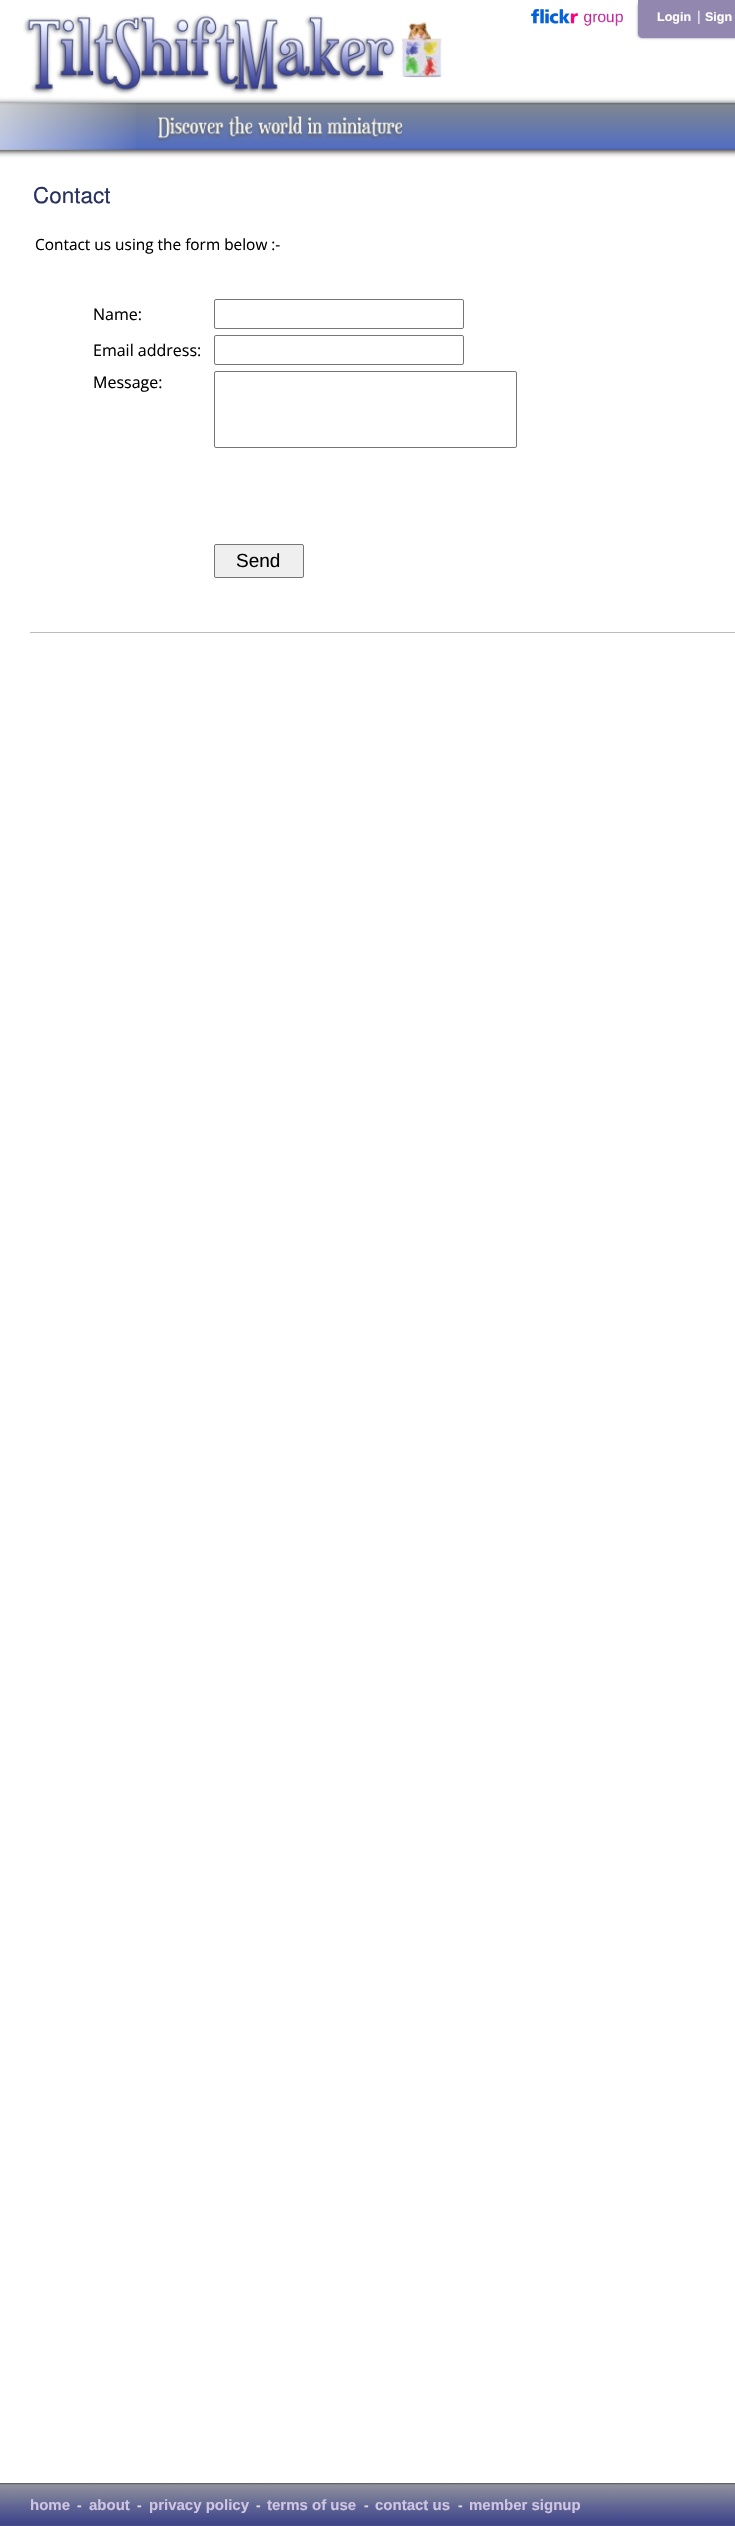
void draw(SkCanvas* canvas) {
	SkPaint paint;
	paint.setAntiAlias(true);
	auto svgPath = [&](const char* data, bool evenOdd = false) {
		SkPath result = *SkParsePath::FromSVGString(data);
		if (evenOdd) result.setFillType(SkPathFillType::kEvenOdd);
		return result;
	};
	canvas->clear(0xffffffff);
	paint.setColor(0xeb000000);
	paint.setMaskFilter(SkMaskFilter::MakeBlur(kNormal_SkBlurStyle, 3));
	canvas->drawRect(SkRect::MakeXYWH(-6, 104, 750, 47), paint);
	paint.setMaskFilter(nullptr);
	canvas->drawImageRect(SkImages::DeferredFromEncodedData(SkData::MakeFromFileName("img1.png")), SkRect::MakeXYWH(23, 14, 419, 81), SkSamplingOptions());
	canvas->drawImageRect(SkImages::DeferredFromEncodedData(SkData::MakeFromFileName("img2.png")), SkRect::MakeXYWH(531, 9, 92, 17), SkSamplingOptions());
	paint.setColor(0x59685b89);
	paint.setMaskFilter(SkMaskFilter::MakeBlur(kNormal_SkBlurStyle, 1));
	canvas->drawRoundRect(SkRect::MakeXYWH(637, 1, 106, 38), 5, 5, paint);
	paint.setMaskFilter(nullptr);
	paint.setColor(0xff9287af);
	canvas->drawPath(svgPath("M638 0H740V38H643C640 38 638 36 638 33Z"), paint);
	SkFont f1(fontMgr->matchFamilyStyle("Liberation Sans", SkFontStyle::Bold()), 12.5);
	f1.setSubpixel(true);
	paint.setColor(0xffffffff);
	canvas->drawString("Login", 657, 21, f1, paint);
	SkFont f2(fontMgr->matchFamilyStyle("Liberation Sans", SkFontStyle::Normal()), 14);
	f2.setSubpixel(true);
	paint.setColor(0xffebe9f2);
	canvas->drawString("|", 697, 21, f2, paint);
	paint.setColor(0xffffffff);
	canvas->drawString("Sign", 705, 21, f1, paint);
	{
		const SkColor colors[] = {0xff646c76, 0xff7f8690, 0xff536ec1, 0xff4f5f8d};
		const float stops[] = {0, 0.05, 0.95, 1};
		const SkPoint ends[] = {{440, 103}, {440, 150}};
		paint.setShader(SkGradientShader::MakeLinear(ends, colors, stops, 4, SkTileMode::kClamp));
		paint.setAlpha(255);
	}
	canvas->drawRect(SkRect::MakeXYWH(0, 103, 735, 47), paint);
	{
		const SkColor colors[] = {0x99ffffff, 0x00ffffff};
		const float stops[] = {0, 0.16};
		const SkPoint ends[] = {{0, 127}, {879, 126}};
		paint.setShader(SkGradientShader::MakeLinear(ends, colors, stops, 2, SkTileMode::kClamp));
		paint.setAlpha(255);
	}
	canvas->drawRect(SkRect::MakeXYWH(0, 103, 136, 47), paint);
	canvas->drawImageRect(SkImages::DeferredFromEncodedData(SkData::MakeFromFileName("img3.png")), SkRect::MakeXYWH(156, 116, 248, 26), SkSamplingOptions());
	SkFont f3(fontMgr->matchFamilyStyle("FreeSans", SkFontStyle::Normal()), 22);
	f3.setSubpixel(true);
	paint.setShader(nullptr);
	paint.setColor(0xff2a335f);
	canvas->drawString("Contact", 33, 203, f3, paint);
	SkFont f4(fontMgr->matchFamilyStyle("Open Sans", SkFontStyle::Normal()), 15.4);
	f4.setSubpixel(true);
	paint.setColor(0xff000000);
	canvas->drawString("Contact us using the form below :-", 35, 250, f4, paint);
	SkFont f5(fontMgr->matchFamilyStyle("Open Sans", SkFontStyle::Normal()), 16);
	f5.setSubpixel(true);
	canvas->drawString("Name:", 93, 320, f5, paint);
	paint.setStroke(true);
	paint.setStrokeWidth(1);
	paint.setColor(0xff767676);
	canvas->drawRoundRect(SkRect::MakeXYWH(214.5, 299.5, 249, 29), 1.5, 1.5, paint);
	paint.setStroke(false);
	paint.setColor(0xff000000);
	canvas->drawString("Email address:", 93, 356, f5, paint);
	paint.setStroke(true);
	paint.setColor(0xff767676);
	canvas->drawRoundRect(SkRect::MakeXYWH(214.5, 335.5, 249, 29), 1.5, 1.5, paint);
	paint.setStroke(false);
	paint.setColor(0xff000000);
	canvas->drawString("Message:", 93, 388, f5, paint);
	paint.setStroke(true);
	paint.setColor(0xff767676);
	canvas->drawRoundRect(SkRect::MakeXYWH(214.5, 371.5, 302, 76), 1.5, 1.5, paint);
	paint.setStroke(false);
	paint.setColor(0xffefefef);
	canvas->drawRoundRect(SkRect::MakeXYWH(214.5, 544.5, 89, 33), 1.5, 1.5, paint);
	paint.setStroke(true);
	paint.setColor(0xff767676);
	canvas->drawRoundRect(SkRect::MakeXYWH(214.5, 544.5, 89, 33), 1.5, 1.5, paint);
	SkFont f6(fontMgr->matchFamilyStyle("Liberation Sans", SkFontStyle::Normal()), 19);
	f6.setSubpixel(true);
	paint.setStroke(false);
	paint.setColor(0xff000000);
	canvas->drawString("Send", 236, 567, f6, paint);
	paint.setColor(0xffbbbbbb);
	canvas->drawRect(SkRect::MakeXYWH(30, 632, 705, 1), paint);
	canvas->drawImageRect(SkImages::DeferredFromEncodedData(SkData::MakeFromFileName("img4.png")), SkRect::MakeXYWH(0, 2484, 735, 42), SkSamplingOptions());
	paint.setColor(0xff606060);
	canvas->drawRect(SkRect::MakeXYWH(0, 2483, 735, 1), paint);
	SkFont f7(fontMgr->matchFamilyStyle("Liberation Sans", SkFontStyle::Bold()), 15);
	f7.setSubpixel(true);
	paint.setColor(0xffcfc5e2);
	canvas->drawString("home", 30, 2510, f7, paint);
	SkFont f8(fontMgr->matchFamilyStyle("Liberation Sans", SkFontStyle::Bold()), 14);
	f8.setSubpixel(true);
	paint.setColor(0xffdddddd);
	canvas->drawString("-", 77, 2510, f8, paint);
	paint.setColor(0xffcfc5e2);
	canvas->drawString("about", 89, 2510, f7, paint);
	paint.setColor(0xffdddddd);
	canvas->drawString("-", 137, 2510, f8, paint);
	paint.setColor(0xffcfc5e2);
	canvas->drawString("privacy policy", 149, 2510, f7, paint);
	paint.setColor(0xffdddddd);
	canvas->drawString("-", 256, 2510, f8, paint);
	paint.setColor(0xffcfc5e2);
	canvas->drawString("terms of use", 267, 2510, f7, paint);
	paint.setColor(0xffdddddd);
	canvas->drawString("-", 364, 2510, f8, paint);
	paint.setColor(0xffcfc5e2);
	canvas->drawString("contact us", 375, 2510, f7, paint);
	paint.setColor(0xffdddddd);
	canvas->drawString("-", 458, 2510, f8, paint);
	paint.setColor(0xffcfc5e2);
	canvas->drawString("member signup", 469, 2510, f7, paint);
}
